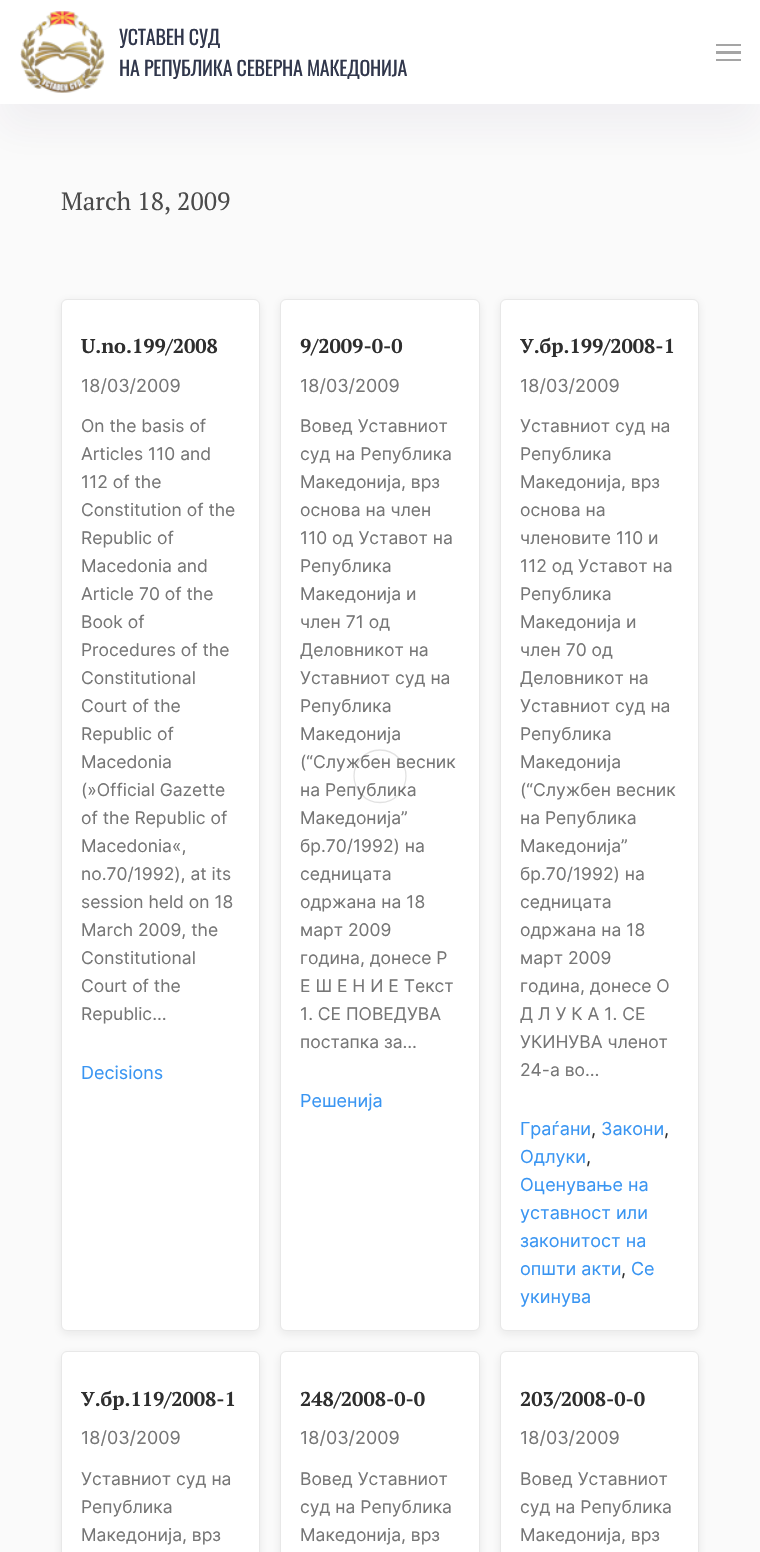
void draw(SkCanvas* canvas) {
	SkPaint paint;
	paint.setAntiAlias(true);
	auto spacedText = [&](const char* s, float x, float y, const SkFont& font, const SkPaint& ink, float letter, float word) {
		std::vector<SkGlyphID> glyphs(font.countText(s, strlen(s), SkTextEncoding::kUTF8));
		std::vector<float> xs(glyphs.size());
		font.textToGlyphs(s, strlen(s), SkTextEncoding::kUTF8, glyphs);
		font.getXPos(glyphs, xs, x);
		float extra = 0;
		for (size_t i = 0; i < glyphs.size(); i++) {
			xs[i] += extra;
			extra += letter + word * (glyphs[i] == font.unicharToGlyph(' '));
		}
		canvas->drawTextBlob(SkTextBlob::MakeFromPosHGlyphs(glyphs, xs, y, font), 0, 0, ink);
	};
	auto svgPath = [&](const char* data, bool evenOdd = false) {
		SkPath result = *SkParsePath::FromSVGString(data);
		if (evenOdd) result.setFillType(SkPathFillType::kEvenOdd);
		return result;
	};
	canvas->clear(0xfffafafa);
	paint.setColor(0x0d372765);
	paint.setMaskFilter(SkMaskFilter::MakeBlur(kNormal_SkBlurStyle, 19));
	canvas->drawRect(SkRect::MakeXYWH(0, 25, 760, 104), paint);
	paint.setMaskFilter(nullptr);
	paint.setColor(0xffffffff);
	canvas->drawRect(SkRect::MakeXYWH(0, 0, 760, 104), paint);
	canvas->drawImageRect(SkImages::DeferredFromEncodedData(SkData::MakeFromFileName("img1.png")), SkRect::MakeXYWH(20, 11, 85, 82), SkSamplingOptions());
	SkFont f1(fontMgr->matchFamilyStyle("Oswald", SkFontStyle::Normal()), 20);
	f1.setSubpixel(true);
	paint.setColor(0xff31374c);
	spacedText("УСТАВЕН СУД", 119, 45, f1, paint, -0.25, 0);
	spacedText("НА РЕПУБЛИКА СЕВЕРНА МАКЕДОНИЈА", 119, 76, f1, paint, -0.25, 0);
	paint.setColor(0xffa5a5a5);
	canvas->drawRect(SkRect::MakeXYWH(716, 44, 25, 2), paint);
	canvas->drawRect(SkRect::MakeXYWH(716, 51, 25, 3), paint);
	canvas->drawRect(SkRect::MakeXYWH(716, 59, 25, 2), paint);
	SkFont f2(fontMgr->matchFamilyStyle("PT Serif", SkFontStyle::Normal()), 25);
	f2.setSubpixel(true);
	paint.setColor(0xff4b4b4b);
	canvas->drawString("March 18, 2009", 61, 210, f2, paint);
	paint.setColor(0x141f1f1f);
	paint.setMaskFilter(SkMaskFilter::MakeBlur(kNormal_SkBlurStyle, 5));
	canvas->drawRoundRect(SkRect::MakeXYWH(61, 301, 199, 1033), 6, 6, paint);
	paint.setMaskFilter(nullptr);
	paint.setColor(0xffffffff);
	canvas->drawRoundRect(SkRect::MakeXYWH(61.5, 299.5, 198, 1031), 5.5, 5.5, paint);
	paint.setStroke(true);
	paint.setStrokeWidth(1);
	paint.setColor(0xffe8e8e8);
	canvas->drawRoundRect(SkRect::MakeXYWH(61.5, 299.5, 198, 1031), 5.5, 5.5, paint);
	SkFont f3(fontMgr->matchFamilyStyle("PT Serif", SkFontStyle::Bold()), 20);
	f3.setSubpixel(true);
	paint.setStroke(false);
	paint.setColor(0xff2e2e2e);
	canvas->drawString("U.no.199/2008", 81, 353, f3, paint);
	SkFont f4(fontMgr->matchFamilyStyle("Inter", SkFontStyle::Normal()), 18);
	f4.setSubpixel(true);
	paint.setColor(0xff767676);
	canvas->drawString("18/03/2009", 81, 392, f4, paint);
	SkFont f5(fontMgr->matchFamilyStyle("Inter", SkFontStyle::Normal()), 17.5);
	f5.setSubpixel(true);
	canvas->drawString("On the basis of", 81, 432, f5, paint);
	canvas->drawString("Articles 110 and", 81, 460, f5, paint);
	canvas->drawString("112 of the", 81, 488, f5, paint);
	canvas->drawString("Constitution of the", 81, 516, f5, paint);
	canvas->drawString("Republic of", 81, 544, f5, paint);
	canvas->drawString("Macedonia and", 81, 572, f5, paint);
	canvas->drawString("Article 70 of the", 81, 600, f5, paint);
	canvas->drawString("Book of", 81, 628, f5, paint);
	canvas->drawString("Procedures of the", 81, 656, f5, paint);
	canvas->drawString("Constitutional", 81, 684, f5, paint);
	canvas->drawString("Court of the", 81, 712, f5, paint);
	canvas->drawString("Republic of", 81, 740, f5, paint);
	canvas->drawString("Macedonia", 81, 768, f5, paint);
	canvas->drawString("(»Official Gazette", 81, 796, f5, paint);
	canvas->drawString("of the Republic of", 81, 824, f5, paint);
	canvas->drawString("Macedonia«,", 81, 852, f5, paint);
	canvas->drawString("no.70/1992), at its", 81, 880, f5, paint);
	canvas->drawString("session held on 18", 81, 908, f5, paint);
	canvas->drawString("March 2009, the", 81, 936, f5, paint);
	canvas->drawString("Constitutional", 81, 964, f5, paint);
	canvas->drawString("Court of the", 81, 992, f5, paint);
	canvas->drawString("Republic…", 81, 1020, f5, paint);
	paint.setColor(0xff3995f2);
	canvas->drawString("Decisions", 81, 1079, f4, paint);
	paint.setColor(0x141f1f1f);
	paint.setMaskFilter(SkMaskFilter::MakeBlur(kNormal_SkBlurStyle, 5));
	canvas->drawRoundRect(SkRect::MakeXYWH(280, 301, 200, 1033), 6, 6, paint);
	paint.setMaskFilter(nullptr);
	paint.setColor(0xffffffff);
	canvas->drawRoundRect(SkRect::MakeXYWH(280.5, 299.5, 199, 1031), 5.5, 5.5, paint);
	paint.setStroke(true);
	paint.setColor(0xffe8e8e8);
	canvas->drawRoundRect(SkRect::MakeXYWH(280.5, 299.5, 199, 1031), 5.5, 5.5, paint);
	paint.setStroke(false);
	paint.setColor(0xff2e2e2e);
	canvas->drawString("9/2009-0-0", 300, 353, f3, paint);
	paint.setColor(0xff767676);
	canvas->drawString("18/03/2009", 300, 392, f4, paint);
	canvas->drawString("Вовед Уставниот", 300, 432, f5, paint);
	canvas->drawString("суд на Република", 300, 460, f5, paint);
	canvas->drawString("Македонија, врз", 300, 488, f5, paint);
	canvas->drawString("основа на член", 300, 516, f5, paint);
	canvas->drawString("110 од Уставот на", 300, 544, f5, paint);
	canvas->drawString("Република", 300, 572, f5, paint);
	canvas->drawString("Македонија и", 300, 600, f5, paint);
	canvas->drawString("член 71 од", 300, 628, f5, paint);
	canvas->drawString("Деловникот на", 300, 656, f5, paint);
	canvas->drawString("Уставниот суд на", 300, 684, f5, paint);
	canvas->drawString("Република", 300, 712, f5, paint);
	canvas->drawString("Македонија", 300, 740, f5, paint);
	canvas->drawString("(“Службен весник", 300, 768, f5, paint);
	canvas->drawString("на Република", 300, 796, f5, paint);
	canvas->drawString("Македонија”", 300, 824, f5, paint);
	canvas->drawString("бр.70/1992) на", 300, 852, f5, paint);
	canvas->drawString("седницата", 300, 880, f5, paint);
	canvas->drawString("одржана на 18", 300, 908, f5, paint);
	canvas->drawString("март 2009", 300, 936, f5, paint);
	canvas->drawString("година, донесе Р", 300, 964, f5, paint);
	canvas->drawString("Е Ш Е Н И Е Текст", 300, 992, f5, paint);
	canvas->drawString("1. СЕ ПОВЕДУВА", 300, 1020, f5, paint);
	canvas->drawString("постапка за…", 300, 1048, f5, paint);
	paint.setColor(0xff3995f2);
	canvas->drawString("Решенија", 300, 1107, f4, paint);
	paint.setColor(0x141f1f1f);
	paint.setMaskFilter(SkMaskFilter::MakeBlur(kNormal_SkBlurStyle, 5));
	canvas->drawRoundRect(SkRect::MakeXYWH(500, 301, 199, 1033), 6, 6, paint);
	paint.setMaskFilter(nullptr);
	paint.setColor(0xffffffff);
	canvas->drawRoundRect(SkRect::MakeXYWH(500.5, 299.5, 198, 1031), 5.5, 5.5, paint);
	paint.setStroke(true);
	paint.setColor(0xffe8e8e8);
	canvas->drawRoundRect(SkRect::MakeXYWH(500.5, 299.5, 198, 1031), 5.5, 5.5, paint);
	paint.setStroke(false);
	paint.setColor(0xff2e2e2e);
	canvas->drawString("У.бр.199/2008-1", 520, 353, f3, paint);
	paint.setColor(0xff767676);
	canvas->drawString("18/03/2009", 520, 392, f4, paint);
	canvas->drawString("Уставниот суд на", 520, 432, f5, paint);
	canvas->drawString("Република", 520, 460, f5, paint);
	canvas->drawString("Македонија, врз", 520, 488, f5, paint);
	canvas->drawString("основа на", 520, 516, f5, paint);
	canvas->drawString("членовите 110 и", 520, 544, f5, paint);
	canvas->drawString("112 од Уставот на", 520, 572, f5, paint);
	canvas->drawString("Република", 520, 600, f5, paint);
	canvas->drawString("Македонија и", 520, 628, f5, paint);
	canvas->drawString("член 70 од", 520, 656, f5, paint);
	canvas->drawString("Деловникот на", 520, 684, f5, paint);
	canvas->drawString("Уставниот суд на", 520, 712, f5, paint);
	canvas->drawString("Република", 520, 740, f5, paint);
	canvas->drawString("Македонија", 520, 768, f5, paint);
	canvas->drawString("(“Службен весник", 520, 796, f5, paint);
	canvas->drawString("на Република", 520, 824, f5, paint);
	canvas->drawString("Македонија”", 520, 852, f5, paint);
	canvas->drawString("бр.70/1992) на", 520, 880, f5, paint);
	canvas->drawString("седницата", 520, 908, f5, paint);
	canvas->drawString("одржана на 18", 520, 936, f5, paint);
	canvas->drawString("март 2009", 520, 964, f5, paint);
	canvas->drawString("година, донесе О", 520, 992, f5, paint);
	canvas->drawString("Д Л У К А 1. СЕ", 520, 1020, f5, paint);
	canvas->drawString("УКИНУВА членот", 520, 1048, f5, paint);
	canvas->drawString("24-а во…", 520, 1076, f5, paint);
	paint.setColor(0xff3995f2);
	canvas->drawString("Граѓани", 520, 1135, f4, paint);
	paint.setColor(0xff2e2e2e);
	canvas->drawString(",", 591, 1135, f4, paint);
	paint.setColor(0xff3995f2);
	canvas->drawString("Закони", 601, 1135, f4, paint);
	paint.setColor(0xff2e2e2e);
	canvas->drawString(",", 664, 1135, f4, paint);
	paint.setColor(0xff3995f2);
	canvas->drawString("Одлуки", 520, 1163, f4, paint);
	paint.setColor(0xff2e2e2e);
	canvas->drawString(",", 586, 1163, f4, paint);
	paint.setColor(0xff3995f2);
	canvas->drawString("Оценување на", 520, 1191, f4, paint);
	canvas->drawString("уставност или", 520, 1219, f4, paint);
	canvas->drawString("законитост на", 520, 1247, f4, paint);
	canvas->drawString("општи акти", 520, 1275, f4, paint);
	paint.setColor(0xff2e2e2e);
	canvas->drawString(",", 621, 1275, f4, paint);
	paint.setColor(0xff3995f2);
	canvas->drawString("Се", 631, 1275, f4, paint);
	canvas->drawString("укинува", 520, 1303, f4, paint);
	paint.setColor(0x141f1f1f);
	paint.setMaskFilter(SkMaskFilter::MakeBlur(kNormal_SkBlurStyle, 5));
	canvas->drawRoundRect(SkRect::MakeXYWH(61, 1354, 199, 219), 6, 6, paint);
	paint.setMaskFilter(nullptr);
	paint.setColor(0xffffffff);
	canvas->drawRoundRect(SkRect::MakeXYWH(61.5, 1351.5, 198, 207), 5.5, 5.5, paint);
	paint.setStroke(true);
	paint.setColor(0xffe8e8e8);
	canvas->drawRoundRect(SkRect::MakeXYWH(61.5, 1351.5, 198, 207), 5.5, 5.5, paint);
	paint.setStroke(false);
	paint.setColor(0xff2e2e2e);
	canvas->drawString("У.бр.119/2008-1", 81, 1406, f3, paint);
	paint.setColor(0xff767676);
	canvas->drawString("18/03/2009", 81, 1444, f4, paint);
	canvas->drawString("Уставниот суд на", 81, 1485, f5, paint);
	canvas->drawString("Република", 81, 1513, f5, paint);
	canvas->drawString("Македонија, врз", 81, 1541, f5, paint);
	paint.setColor(0x141f1f1f);
	paint.setMaskFilter(SkMaskFilter::MakeBlur(kNormal_SkBlurStyle, 5));
	canvas->drawRoundRect(SkRect::MakeXYWH(280, 1354, 200, 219), 6, 6, paint);
	paint.setMaskFilter(nullptr);
	paint.setColor(0xffffffff);
	canvas->drawRoundRect(SkRect::MakeXYWH(280.5, 1351.5, 199, 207), 5.5, 5.5, paint);
	paint.setStroke(true);
	paint.setColor(0xffe8e8e8);
	canvas->drawRoundRect(SkRect::MakeXYWH(280.5, 1351.5, 199, 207), 5.5, 5.5, paint);
	paint.setStroke(false);
	paint.setColor(0xff2e2e2e);
	canvas->drawString("248/2008-0-0", 300, 1406, f3, paint);
	paint.setColor(0xff767676);
	canvas->drawString("18/03/2009", 300, 1444, f4, paint);
	canvas->drawString("Вовед Уставниот", 300, 1485, f5, paint);
	canvas->drawString("суд на Република", 300, 1513, f5, paint);
	canvas->drawString("Македонија, врз", 300, 1541, f5, paint);
	paint.setColor(0x141f1f1f);
	paint.setMaskFilter(SkMaskFilter::MakeBlur(kNormal_SkBlurStyle, 5));
	canvas->drawRoundRect(SkRect::MakeXYWH(500, 1354, 199, 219), 6, 6, paint);
	paint.setMaskFilter(nullptr);
	paint.setColor(0xffffffff);
	canvas->drawRoundRect(SkRect::MakeXYWH(500.5, 1351.5, 198, 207), 5.5, 5.5, paint);
	paint.setStroke(true);
	paint.setColor(0xffe8e8e8);
	canvas->drawRoundRect(SkRect::MakeXYWH(500.5, 1351.5, 198, 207), 5.5, 5.5, paint);
	paint.setStroke(false);
	paint.setColor(0xff2e2e2e);
	canvas->drawString("203/2008-0-0", 520, 1406, f3, paint);
	paint.setColor(0xff767676);
	canvas->drawString("18/03/2009", 520, 1444, f4, paint);
	canvas->drawString("Вовед Уставниот", 520, 1485, f5, paint);
	canvas->drawString("суд на Република", 520, 1513, f5, paint);
	canvas->drawString("Македонија, врз", 520, 1541, f5, paint);
	paint.setStroke(true);
	paint.setStrokeWidth(1.3);
	paint.setStrokeCap(SkPaint::kRound_Cap);
	paint.setColor(0x1f111111);
	canvas->drawPath(svgPath("M380 750C394.5 750 406 762 406 776C406 790.5 394.5 802.5 380 802.5C365.5 802.5 354 790.5 354 776C354 762 365.5 750 380 750"), paint);
}
